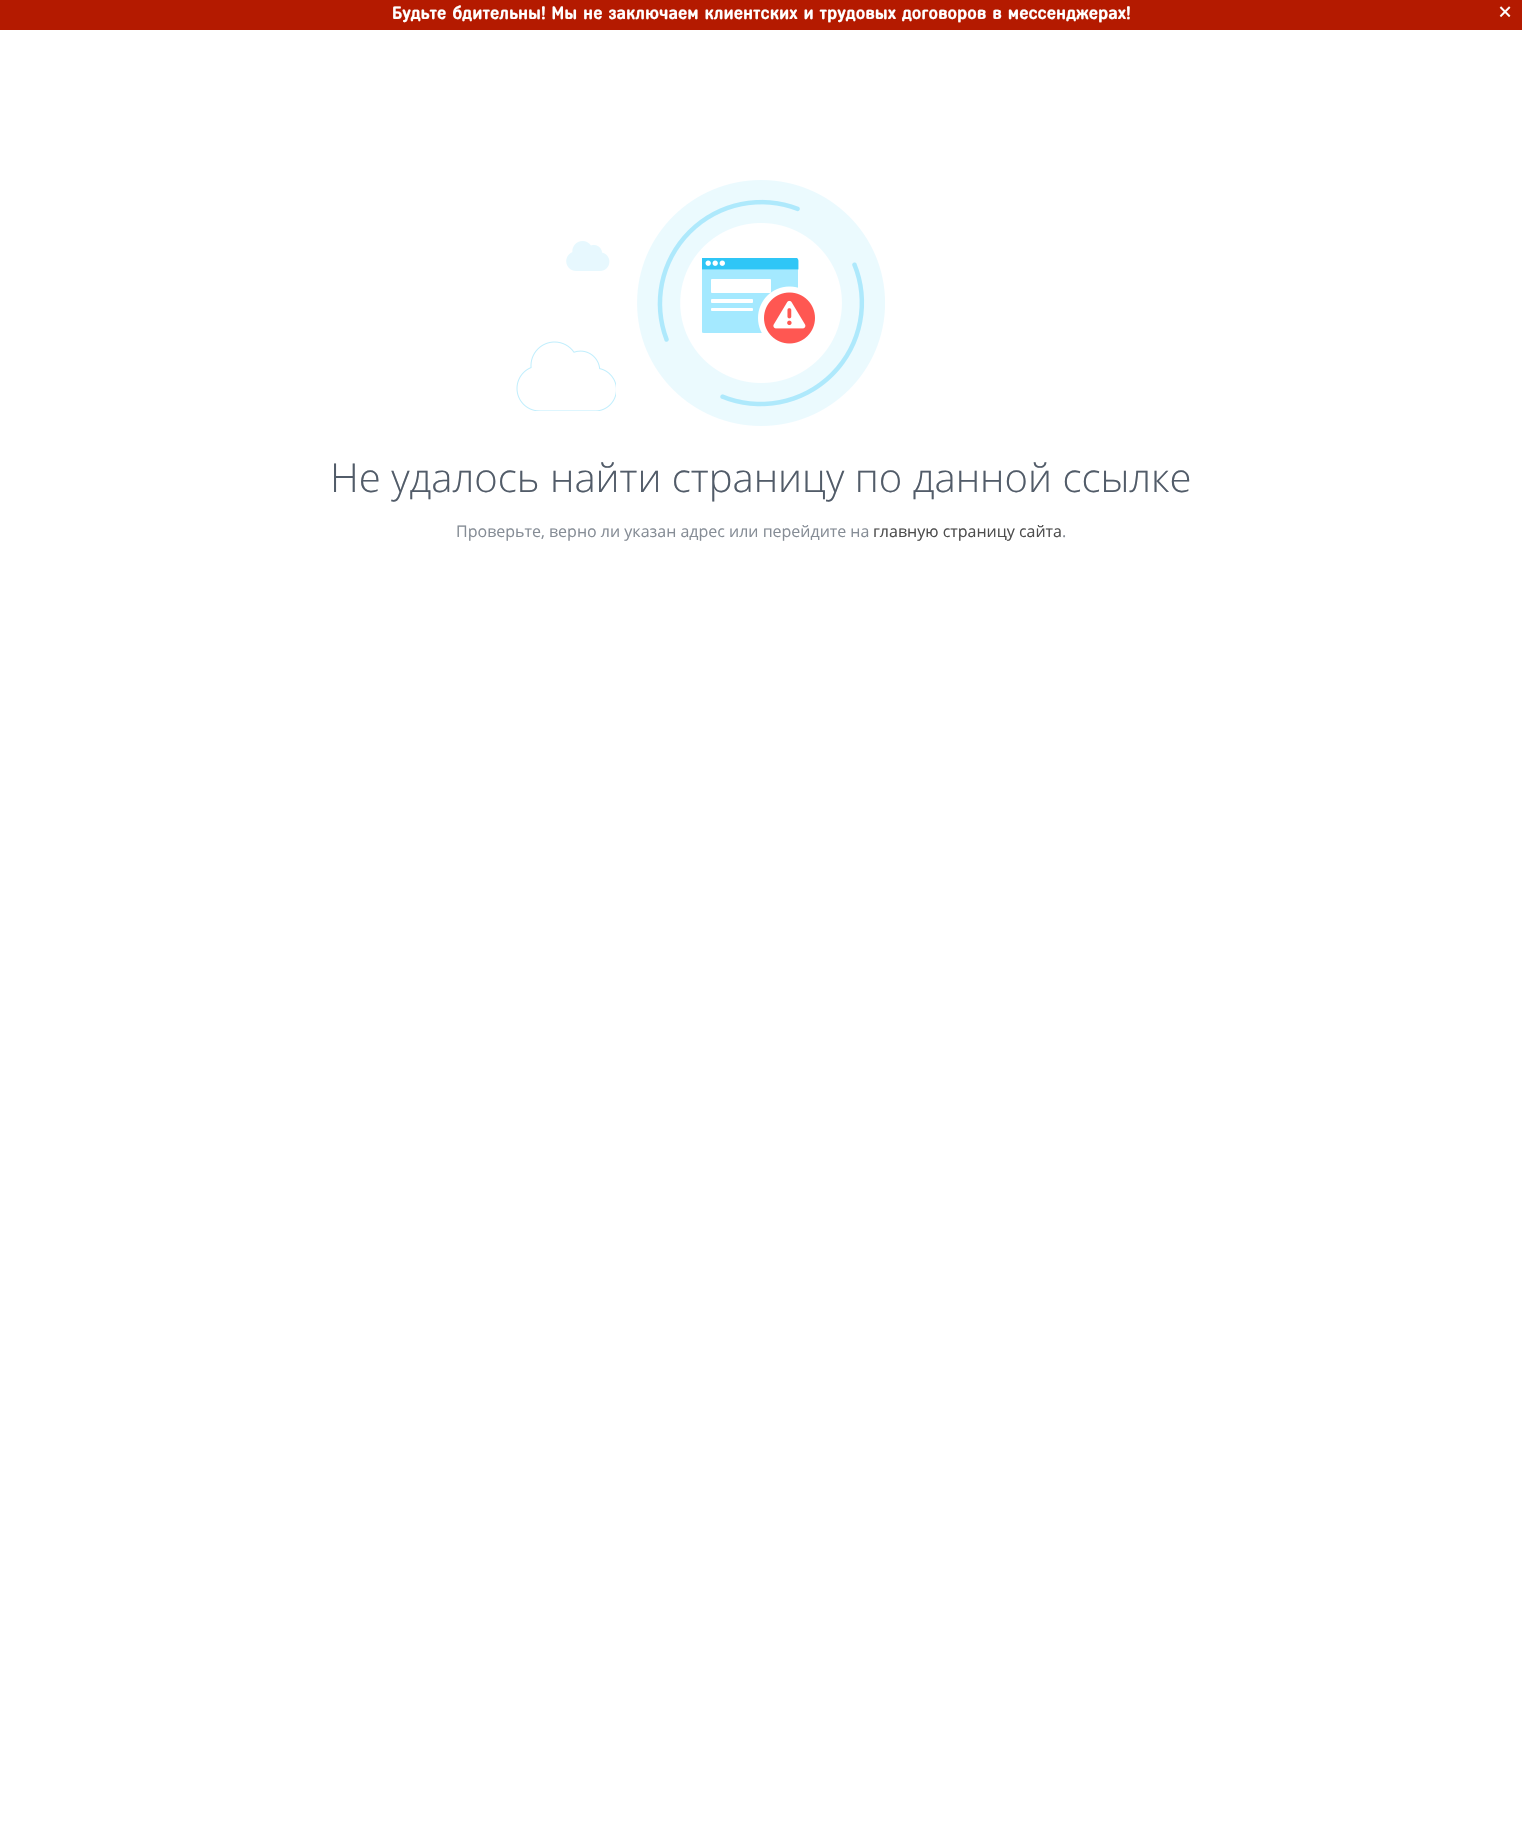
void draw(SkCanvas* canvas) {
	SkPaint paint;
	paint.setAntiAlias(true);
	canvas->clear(0xffffffff);
	paint.setColor(0xffb41a00);
	canvas->drawRect(SkRect::MakeXYWH(0, 0, 1522, 30), paint);
	SkFont f1(fontMgr->matchFamilyStyle("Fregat", SkFontStyle::Bold()), 18);
	f1.setSubpixel(true);
	paint.setColor(0xffffffff);
	canvas->drawString("Будьте бдительны! Мы не заключаем клиентских и трудовых договоров в мессенджерах!", 392, 19, f1, paint);
	SkFont f2(fontMgr->matchFamilyStyle("Liberation Serif", SkFontStyle::Bold()), 25);
	f2.setSubpixel(true);
	canvas->drawString("×", 1498, 20, f2, paint);
	canvas->drawImageRect(SkImages::DeferredFromEncodedData(SkData::MakeFromFileName("img1.png")), SkRect::MakeXYWH(637, 180, 248, 246), SkSamplingOptions());
	canvas->drawImageRect(SkImages::DeferredFromEncodedData(SkData::MakeFromFileName("img2.png")), SkRect::MakeXYWH(516, 241, 100, 170), SkSamplingOptions());
	canvas->drawImageRect(SkImages::DeferredFromEncodedData(SkData::MakeFromFileName("img3.png")), SkRect::MakeXYWH(702, 258, 113, 86), SkSamplingOptions());
	SkFont f3(fontMgr->matchFamilyStyle("Open Sans", SkFontStyle(300, SkFontStyle::kNormal_Width, SkFontStyle::kUpright_Slant)), 40);
	f3.setSubpixel(true);
	paint.setColor(0xff525c69);
	canvas->drawString("Не удалось найти страницу по данной ссылке", 330, 492, f3, paint);
	SkFont f4(fontMgr->matchFamilyStyle("Open Sans", SkFontStyle::Normal()), 16);
	f4.setSubpixel(true);
	paint.setColor(0xff868d96);
	canvas->drawString("Проверьте, верно ли указан адрес или перейдите на", 456, 537, f4, paint);
	paint.setColor(0xff4d4d4d);
	canvas->drawString("главную страницу сайта", 873, 537, f4, paint);
	paint.setColor(0xff868d96);
	canvas->drawString(".", 1062, 537, f4, paint);
}
